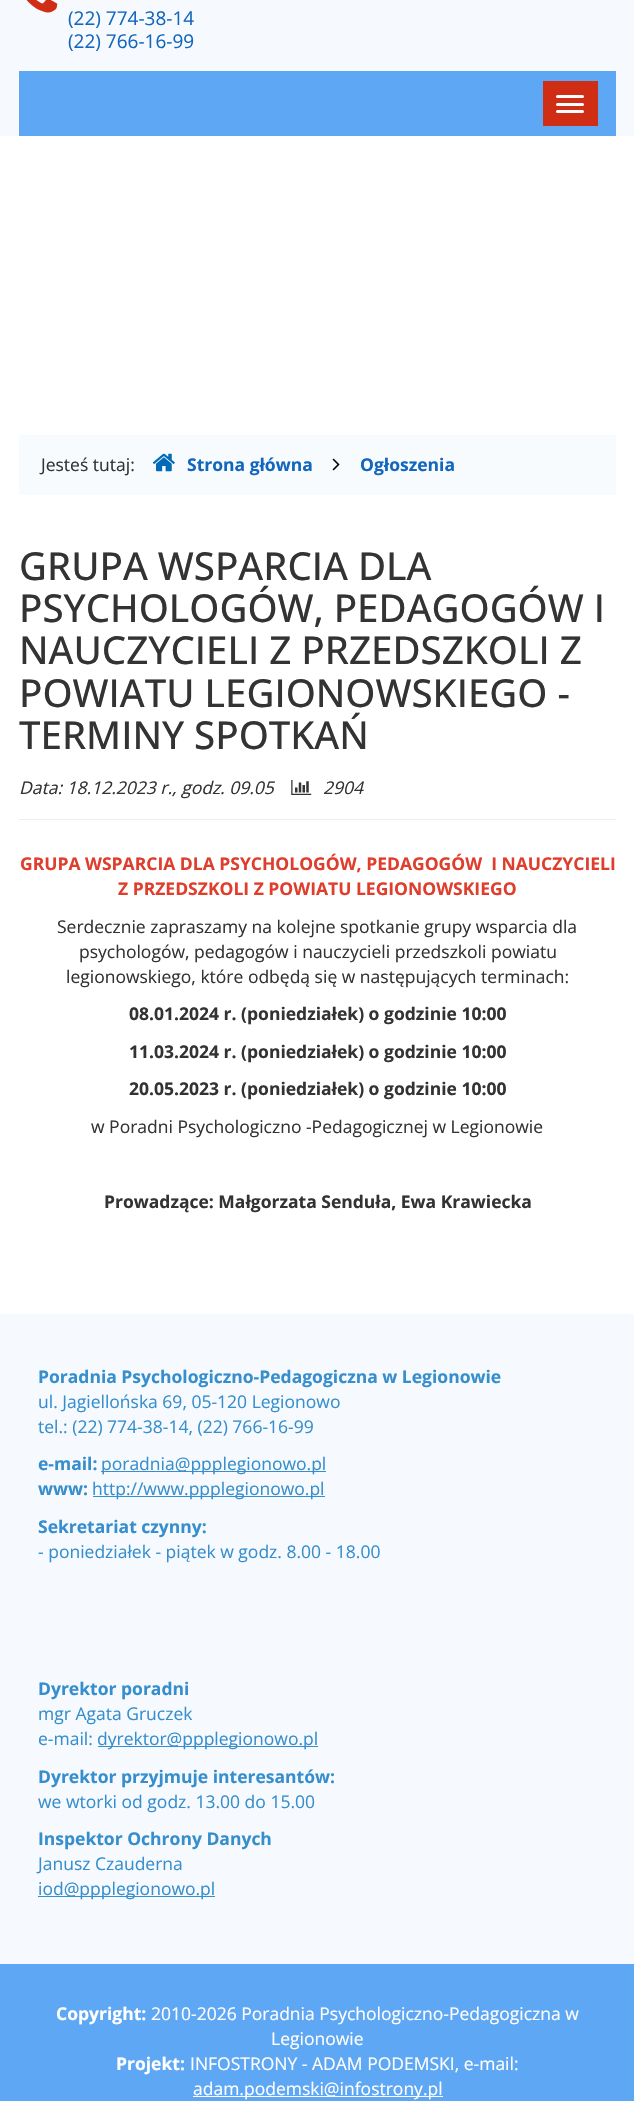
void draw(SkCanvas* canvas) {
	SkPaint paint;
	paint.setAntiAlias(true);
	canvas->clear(0xffffffff);
	paint.setColor(0xfff6fafe);
	canvas->drawRect(SkRect::MakeXYWH(0, 0, 634, 136), paint);
	canvas->drawImageRect(SkImages::DeferredFromEncodedData(SkData::MakeFromFileName("img1.png")), SkRect::MakeXYWH(26, 0, 32, 13), SkSamplingOptions());
	SkFont f1(fontMgr->matchFamilyStyle("Open Sans", SkFontStyle::Normal()), 19);
	f1.setSubpixel(true);
	paint.setColor(0xff1266be);
	canvas->drawString("(22) 774-38-14", 68, 25, f1, paint);
	canvas->drawString("(22) 766-16-99", 68, 48, f1, paint);
	paint.setColor(0xff5ea7f4);
	canvas->drawRect(SkRect::MakeXYWH(19, 71, 597, 65), paint);
	paint.setColor(0xffcf2e15);
	canvas->drawRect(SkRect::MakeXYWH(543, 81, 55, 45), paint);
	paint.setColor(0xffffffff);
	canvas->drawRoundRect(SkRect::MakeXYWH(556, 95, 28, 3), 1.5, 1.5, paint);
	canvas->drawRoundRect(SkRect::MakeXYWH(556, 103, 28, 3), 1.5, 1.5, paint);
	canvas->drawRoundRect(SkRect::MakeXYWH(556, 110, 28, 3), 1.5, 1.5, paint);
	paint.setColor(0xfff7fbfe);
	canvas->drawRect(SkRect::MakeXYWH(19, 435, 597, 60), paint);
	SkFont f2(fontMgr->matchFamilyStyle("Open Sans", SkFontStyle::Normal()), 17.5);
	f2.setSubpixel(true);
	paint.setColor(0xff333333);
	canvas->drawString("Jesteś tutaj:", 41, 471, f2, paint);
	canvas->drawImageRect(SkImages::DeferredFromEncodedData(SkData::MakeFromFileName("img2.png")), SkRect::MakeXYWH(152, 453, 23, 19), SkSamplingOptions());
	SkFont f3(fontMgr->matchFamilyStyle("Open Sans", SkFontStyle::Bold()), 17.5);
	f3.setSubpixel(true);
	paint.setColor(0xff1266be);
	canvas->drawString("Strona główna", 187, 471, f3, paint);
	canvas->drawImageRect(SkImages::DeferredFromEncodedData(SkData::MakeFromFileName("img3.png")), SkRect::MakeXYWH(332, 458, 8, 13), SkSamplingOptions());
	canvas->drawString("Ogłoszenia", 360, 471, f3, paint);
	SkFont f4(fontMgr->matchFamilyStyle("Open Sans", SkFontStyle(500, SkFontStyle::kNormal_Width, SkFontStyle::kUpright_Slant)), 38.5);
	f4.setSubpixel(true);
	paint.setColor(0xff333333);
	canvas->drawString("GRUPA WSPARCIA DLA", 19, 580, f4, paint);
	canvas->drawString("PSYCHOLOGÓW, PEDAGOGÓW I", 19, 622, f4, paint);
	canvas->drawString("NAUCZYCIELI Z PRZEDSZKOLI Z", 19, 664, f4, paint);
	canvas->drawString("POWIATU LEGIONOWSKIEGO -", 19, 707, f4, paint);
	canvas->drawString("TERMINY SPOTKAŃ", 19, 749, f4, paint);
	paint.setColor(0xffeeeeee);
	canvas->drawRect(SkRect::MakeXYWH(19, 819, 597, 1), paint);
	SkFont f5(fontMgr->matchFamilyStyle("Open Sans", SkFontStyle::Italic()), 17.5);
	f5.setSubpixel(true);
	paint.setColor(0xff333333);
	canvas->drawString("Data: 18.12.2023 r., godz. 09.05", 19, 794, f5, paint);
	canvas->drawImageRect(SkImages::DeferredFromEncodedData(SkData::MakeFromFileName("img4.png")), SkRect::MakeXYWH(291, 780, 21, 15), SkSamplingOptions());
	canvas->drawString("2904", 323, 794, f5, paint);
	paint.setColor(0xffe03e2d);
	canvas->drawString("GRUPA WSPARCIA DLA PSYCHOLOGÓW, PEDAGOGÓW  I NAUCZYCIELI", 20, 870, f3, paint);
	canvas->drawString("Z PRZEDSZKOLI Z POWIATU LEGIONOWSKIEGO", 118, 895, f3, paint);
	paint.setColor(0xff333333);
	canvas->drawString("Serdecznie zapraszamy na kolejne spotkanie grupy wsparcia dla", 57, 933, f2, paint);
	canvas->drawString("psychologów, pedagogów i nauczycieli przedszkoli powiatu", 79, 958, f2, paint);
	canvas->drawString("legionowskiego, które odbędą się w następujących terminach:", 66, 983, f2, paint);
	canvas->drawString("08.01.2024 r. (poniedziałek) o godzinie 10:00", 129, 1020, f3, paint);
	canvas->drawString("11.03.2024 r. (poniedziałek) o godzinie 10:00", 129, 1058, f3, paint);
	canvas->drawString("20.05.2023 r. (poniedziałek) o godzinie 10:00", 129, 1095, f3, paint);
	canvas->drawString("w Poradni Psychologiczno -Pedagogicznej w Legionowie", 91, 1133, f2, paint);
	canvas->drawString("Prowadzące: Małgorzata Senduła, Ewa Krawiecka", 104, 1208, f3, paint);
	paint.setColor(0xfff6fafe);
	canvas->drawRect(SkRect::MakeXYWH(0, 1314, 634, 650), paint);
	paint.setColor(0xff368ecd);
	canvas->drawString("Poradnia Psychologiczno-Pedagogiczna w Legionowie", 38, 1383, f3, paint);
	canvas->drawString("ul. Jagiellońska 69, 05-120 Legionowo", 38, 1408, f2, paint);
	canvas->drawString("tel.: (22) 774-38-14, (22) 766-16-99", 38, 1433, f2, paint);
	canvas->drawString("e-mail:", 38, 1470, f3, paint);
	canvas->drawRect(SkRect::MakeXYWH(101, 1471, 225, 1), paint);
	canvas->drawString("poradnia@ppplegionowo.pl", 101, 1470, f2, paint);
	canvas->drawString("www:", 38, 1495, f3, paint);
	canvas->drawRect(SkRect::MakeXYWH(93, 1496, 232, 1), paint);
	canvas->drawString("http://www.ppplegionowo.pl", 92, 1495, f2, paint);
	canvas->drawString("Sekretariat czynny:", 38, 1533, f3, paint);
	canvas->drawString("- poniedziałek - piątek w godz. 8.00 - 18.00", 38, 1558, f2, paint);
	canvas->drawString("Dyrektor poradni", 38, 1695, f3, paint);
	canvas->drawString("mgr Agata Gruczek", 38, 1720, f2, paint);
	canvas->drawString("e-mail:", 38, 1745, f2, paint);
	canvas->drawRect(SkRect::MakeXYWH(98, 1746, 220, 1), paint);
	canvas->drawString("dyrektor@ppplegionowo.pl", 97, 1745, f2, paint);
	canvas->drawString("Dyrektor przyjmuje interesantów:", 38, 1783, f3, paint);
	canvas->drawString("we wtorki od godz. 13.00 do 15.00", 38, 1808, f2, paint);
	canvas->drawString("Inspektor Ochrony Danych", 38, 1845, f3, paint);
	canvas->drawString("Janusz Czauderna", 38, 1870, f2, paint);
	canvas->drawRect(SkRect::MakeXYWH(38, 1896, 177, 1), paint);
	canvas->drawString("iod@ppplegionowo.pl", 38, 1895, f2, paint);
	paint.setColor(0xff5ea7f4);
	canvas->drawRect(SkRect::MakeXYWH(0, 1964, 634, 137), paint);
	paint.setColor(0xffffffff);
	canvas->drawString("Copyright:", 56, 2020, f3, paint);
	canvas->drawString("2010-2026 Poradnia Psychologiczno-Pedagogiczna w", 151, 2020, f2, paint);
	canvas->drawString("Legionowie", 271, 2045, f2, paint);
	canvas->drawString("Projekt:", 116, 2070, f3, paint);
	canvas->drawString("INFOSTRONY - ADAM PODEMSKI, e-mail:", 190, 2070, f2, paint);
	canvas->drawRect(SkRect::MakeXYWH(193, 2096, 250, 1), paint);
	canvas->drawString("adam.podemski@infostrony.pl", 193, 2095, f2, paint);
}
